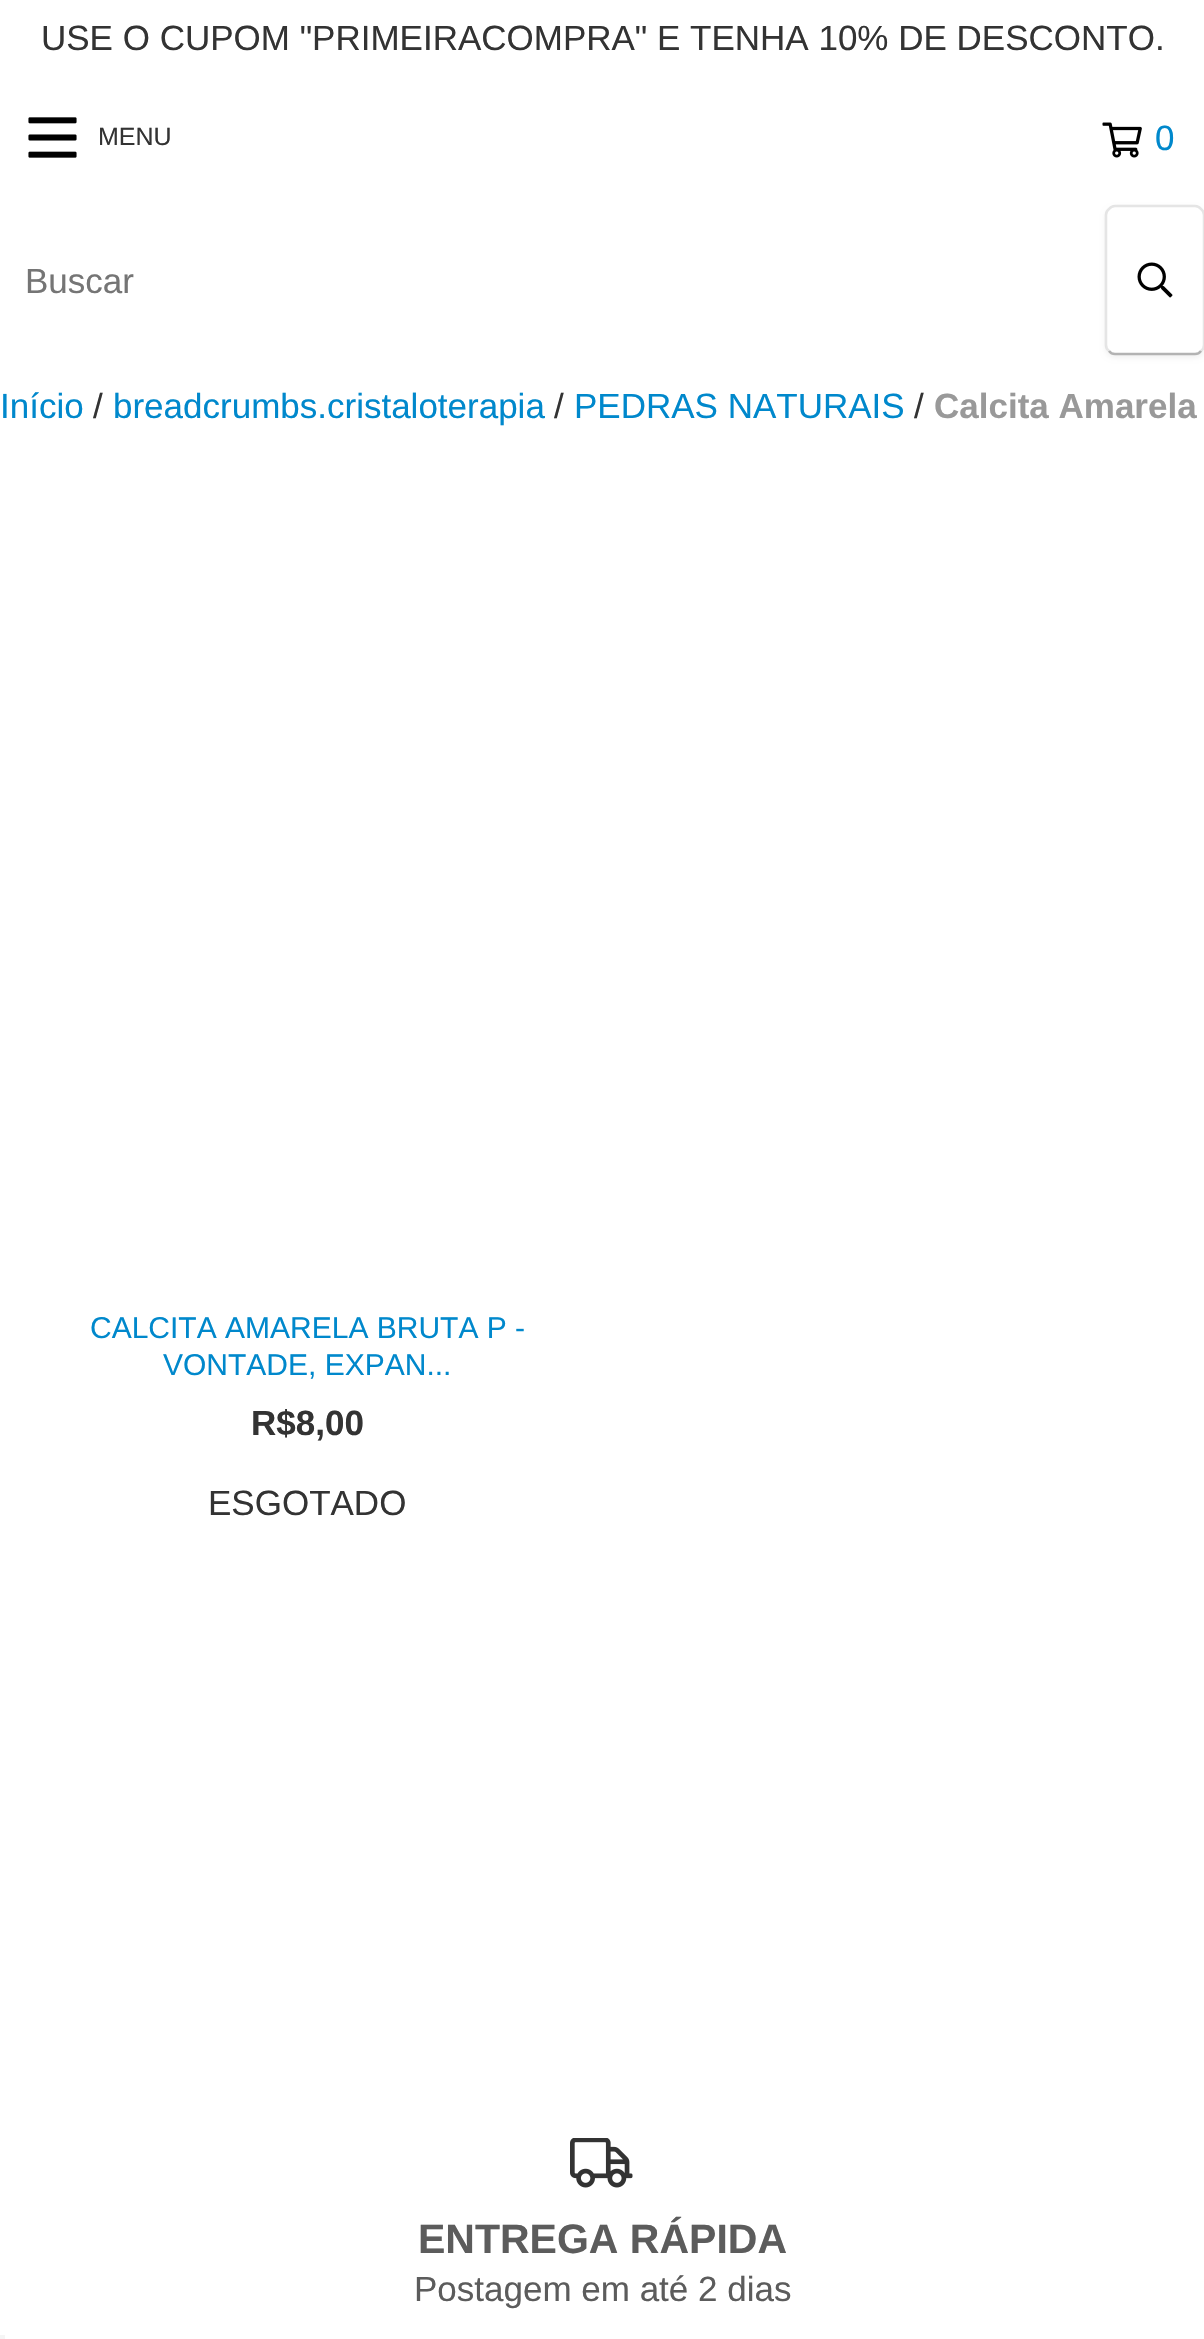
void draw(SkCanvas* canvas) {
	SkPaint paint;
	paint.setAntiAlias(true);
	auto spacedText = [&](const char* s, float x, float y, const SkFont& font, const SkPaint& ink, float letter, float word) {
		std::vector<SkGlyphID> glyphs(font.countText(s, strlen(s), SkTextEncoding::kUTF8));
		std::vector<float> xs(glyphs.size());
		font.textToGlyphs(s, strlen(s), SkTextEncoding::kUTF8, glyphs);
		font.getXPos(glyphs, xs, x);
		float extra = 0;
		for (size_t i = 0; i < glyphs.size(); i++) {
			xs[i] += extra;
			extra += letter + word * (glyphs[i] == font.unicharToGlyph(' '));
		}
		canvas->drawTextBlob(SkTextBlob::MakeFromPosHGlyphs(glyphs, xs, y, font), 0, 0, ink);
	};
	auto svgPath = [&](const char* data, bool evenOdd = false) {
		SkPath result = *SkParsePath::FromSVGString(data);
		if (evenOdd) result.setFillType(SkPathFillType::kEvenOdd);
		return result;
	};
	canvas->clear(0xffffffff);
	SkFont f1(fontMgr->matchFamilyStyle("Liberation Sans", SkFontStyle::Normal()), 35);
	f1.setSubpixel(true);
	paint.setColor(0xff333333);
	canvas->drawString("USE O CUPOM \"PRIMEIRACOMPRA\" E TENHA 10% DE DESCONTO.", 41, 50, f1, paint);
	canvas->drawImageRect(SkImages::DeferredFromEncodedData(SkData::MakeFromFileName("img1.png")), SkRect::MakeXYWH(28, 117, 49, 41), SkSamplingOptions());
	SkFont f2(fontMgr->matchFamilyStyle("Liberation Sans", SkFontStyle::Normal()), 25);
	f2.setSubpixel(true);
	canvas->drawString("MENU", 98, 145, f2, paint);
	canvas->drawImageRect(SkImages::DeferredFromEncodedData(SkData::MakeFromFileName("img2.png")), SkRect::MakeXYWH(1102, 122, 40, 36), SkSamplingOptions());
	paint.setColor(0xff0088cc);
	spacedText("0", 1155, 150, f1, paint, 2, 0);
	paint.setColor(0xff757575);
	canvas->drawString("Buscar", 25, 293, f1, paint);
	canvas->save();
	canvas->clipPath(svgPath("M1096 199H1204V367H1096ZM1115 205H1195C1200.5 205 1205 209.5 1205 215V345C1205 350.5 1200.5 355 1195 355H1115C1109.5 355 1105 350.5 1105 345V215C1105 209.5 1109.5 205 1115 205Z", true), true);
	paint.setColor(0x0d000000);
	paint.setMaskFilter(SkMaskFilter::MakeBlur(kNormal_SkBlurStyle, 2.5));
	canvas->drawRoundRect(SkRect::MakeXYWH(1105, 208, 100, 150), 10, 10, paint);
	paint.setMaskFilter(nullptr);
	canvas->restore();
	paint.setStroke(true);
	paint.setStrokeWidth(2.5);
	paint.setColor(0xffb3b3b3);
	canvas->drawPath(svgPath("M1201 351C1199.5 353 1197.5 354 1195 354H1115C1112.5 354 1110.5 353 1109 351"), paint);
	paint.setColor(0x1a000000);
	canvas->drawPath(svgPath("M1109 351C1107 349.5 1106 347.5 1106 345V215C1106 212.5 1107 210.5 1109 209C1110.5 207 1112.5 206 1115 206H1195C1197.5 206 1199.5 207 1201 209C1203 210.5 1204 212.5 1204 215V345C1204 347.5 1203 349.5 1201 351"), paint);
	canvas->drawImageRect(SkImages::DeferredFromEncodedData(SkData::MakeFromFileName("img3.png")), SkRect::MakeXYWH(1137, 262, 36, 36), SkSamplingOptions());
	paint.setStroke(false);
	paint.setColor(0xff0088cc);
	canvas->drawString("Início", 0, 418, f1, paint);
	paint.setColor(0xff333333);
	canvas->drawString("/", 93, 418, f1, paint);
	paint.setColor(0xff0088cc);
	canvas->drawString("breadcrumbs.cristaloterapia", 113, 418, f1, paint);
	paint.setColor(0xff333333);
	canvas->drawString("/", 554, 418, f1, paint);
	paint.setColor(0xff0088cc);
	canvas->drawString("PEDRAS NATURAIS", 574, 418, f1, paint);
	paint.setColor(0xff333333);
	canvas->drawString("/", 914, 418, f1, paint);
	SkFont f3(fontMgr->matchFamilyStyle("Liberation Sans", SkFontStyle::Bold()), 35);
	f3.setSubpixel(true);
	paint.setColor(0xff999999);
	canvas->drawString("Calcita Amarela", 934, 418, f3, paint);
	SkFont f4(fontMgr->matchFamilyStyle("Liberation Sans", SkFontStyle::Normal()), 30);
	f4.setSubpixel(true);
	paint.setColor(0xff0088cc);
	canvas->drawString("CALCITA AMARELA BRUTA P -", 90, 1338, f4, paint);
	canvas->drawString("VONTADE, EXPAN...", 163, 1375, f4, paint);
	paint.setColor(0xff333333);
	canvas->drawString("R$8,00", 251, 1435, f3, paint);
	canvas->drawString("ESGOTADO", 208, 1515, f1, paint);
	canvas->drawImageRect(SkImages::DeferredFromEncodedData(SkData::MakeFromFileName("img4.png")), SkRect::MakeXYWH(570, 2138, 63, 50), SkSamplingOptions());
	SkFont f5(fontMgr->matchFamilyStyle("Liberation Sans", SkFontStyle::Bold()), 41);
	f5.setSubpixel(true);
	paint.setColor(0xff5c5c5c);
	canvas->drawString("ENTREGA RÁPIDA", 418, 2253, f5, paint);
	canvas->drawString("Postagem em até 2 dias", 414, 2301, f1, paint);
	paint.setColor(0xfff5f5f5);
	canvas->drawRect(SkRect::MakeXYWH(0, 2335, 5, 4), paint);
}
